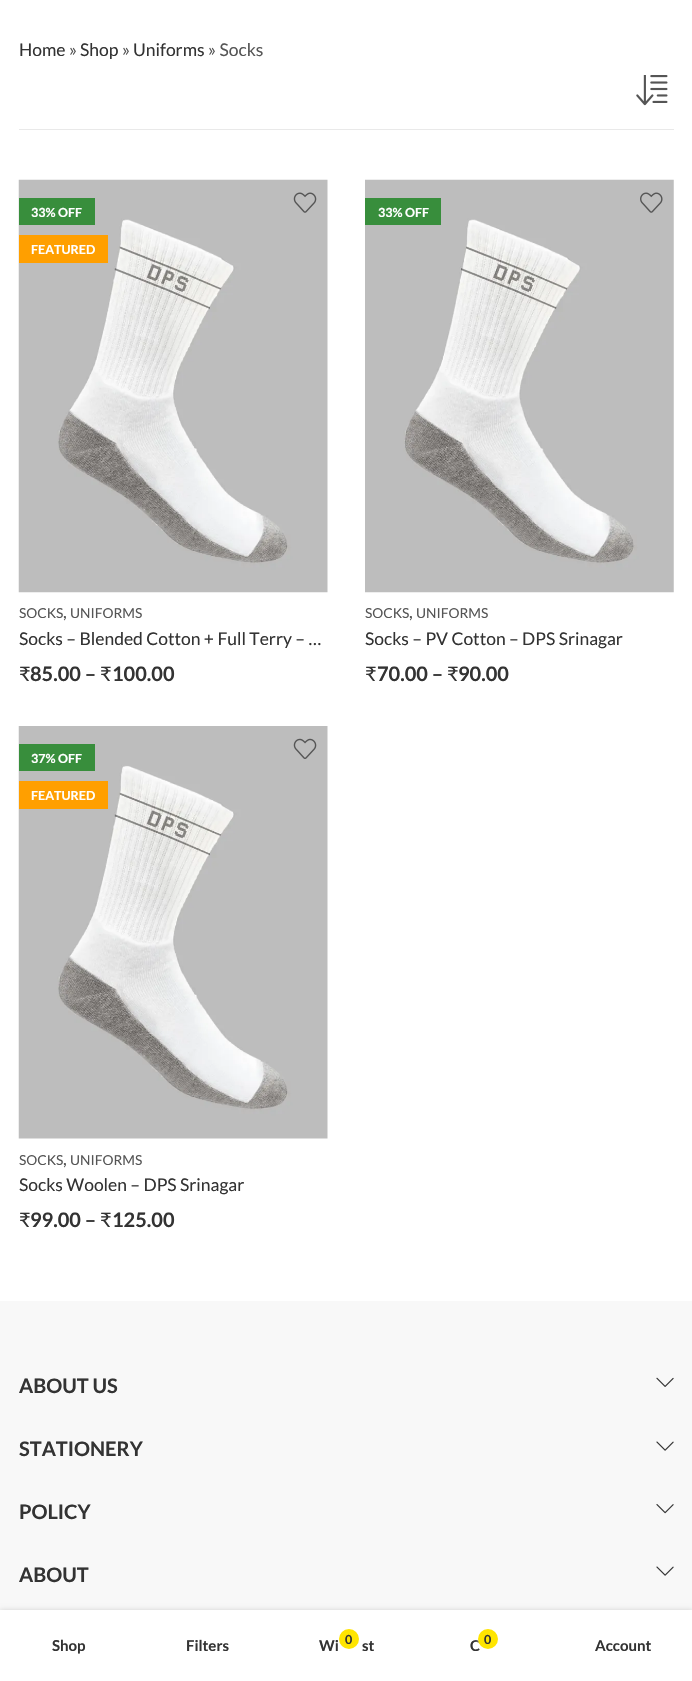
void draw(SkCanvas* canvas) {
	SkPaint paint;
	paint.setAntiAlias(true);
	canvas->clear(0xffffffff);
	SkFont f1(fontMgr->matchFamilyStyle("Lato", SkFontStyle::Normal()), 17.5);
	f1.setSubpixel(true);
	paint.setColor(0xff333333);
	canvas->drawString("Home", 19, 56, f1, paint);
	paint.setColor(0xff555555);
	canvas->drawString("»", 69, 56, f1, paint);
	paint.setColor(0xff333333);
	canvas->drawString("Shop", 80, 56, f1, paint);
	paint.setColor(0xff555555);
	canvas->drawString("»", 122, 56, f1, paint);
	paint.setColor(0xff333333);
	canvas->drawString("Uniforms", 133, 56, f1, paint);
	paint.setColor(0xff555555);
	canvas->drawString("» Socks", 208, 56, f1, paint);
	paint.setColor(0xffe9e9e9);
	canvas->drawRect(SkRect::MakeXYWH(19, 129, 655, 1), paint);
	canvas->drawImageRect(SkImages::DeferredFromEncodedData(SkData::MakeFromFileName("img1.png")), SkRect::MakeXYWH(636, 75, 32, 31), SkSamplingOptions());
	canvas->drawImageRect(SkImages::DeferredFromEncodedData(SkData::MakeFromFileName("img2.png")), SkRect::MakeXYWH(18, 179, 310, 414), SkSamplingOptions());
	canvas->drawImageRect(SkImages::DeferredFromEncodedData(SkData::MakeFromFileName("img3.png")), SkRect::MakeXYWH(293, 192, 24, 21), SkSamplingOptions());
	paint.setColor(0xff388e3c);
	canvas->drawRect(SkRect::MakeXYWH(19, 198, 76, 27), paint);
	SkFont f2(fontMgr->matchFamilyStyle("Lato", SkFontStyle::Bold()), 12.5);
	f2.setSubpixel(true);
	paint.setColor(0xffffffff);
	canvas->drawString("33% OFF", 31, 217, f2, paint);
	paint.setColor(0xffff9f00);
	canvas->drawRect(SkRect::MakeXYWH(19, 235, 89, 28), paint);
	paint.setColor(0xffffffff);
	canvas->drawString("FEATURED", 31, 254, f2, paint);
	SkFont f3(fontMgr->matchFamilyStyle("Lato", SkFontStyle::Normal()), 13.75);
	f3.setSubpixel(true);
	paint.setColor(0xff555555);
	canvas->drawString("SOCKS", 19, 618, f3, paint);
	canvas->drawString(",", 63, 618, f1, paint);
	canvas->drawString("UNIFORMS", 70, 618, f3, paint);
	paint.setColor(0xff333333);
	canvas->drawString("Socks – Blended Cotton + Full Terry – …", 19, 645, f1, paint);
	SkFont f4(fontMgr->matchFamilyStyle("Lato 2", SkFontStyle::Normal()), 20);
	f4.setSubpixel(true);
	canvas->drawString("₹", 19, 681, f4, paint);
	SkFont f5(fontMgr->matchFamilyStyle("Lato", SkFontStyle::Bold()), 20);
	f5.setSubpixel(true);
	canvas->drawString("85.00 –", 30, 681, f5, paint);
	canvas->drawString("₹", 100, 681, f4, paint);
	canvas->drawString("100.00", 112, 681, f5, paint);
	canvas->drawImageRect(SkImages::DeferredFromEncodedData(SkData::MakeFromFileName("img4.png")), SkRect::MakeXYWH(365, 179, 309, 414), SkSamplingOptions());
	paint.setColor(0xff388e3c);
	canvas->drawRect(SkRect::MakeXYWH(365, 198, 76, 27), paint);
	paint.setColor(0xffffffff);
	canvas->drawString("33% OFF", 378, 217, f2, paint);
	canvas->drawImageRect(SkImages::DeferredFromEncodedData(SkData::MakeFromFileName("img5.png")), SkRect::MakeXYWH(640, 192, 23, 21), SkSamplingOptions());
	paint.setColor(0xff555555);
	canvas->drawString("SOCKS", 365, 618, f3, paint);
	canvas->drawString(",", 409, 618, f1, paint);
	canvas->drawString("UNIFORMS", 416, 618, f3, paint);
	paint.setColor(0xff333333);
	canvas->drawString("Socks – PV Cotton – DPS Srinagar", 365, 645, f1, paint);
	canvas->drawString("₹", 365, 681, f4, paint);
	canvas->drawString("70.00 –", 377, 681, f5, paint);
	canvas->drawString("₹", 447, 681, f4, paint);
	canvas->drawString("90.00", 458, 681, f5, paint);
	canvas->drawImageRect(SkImages::DeferredFromEncodedData(SkData::MakeFromFileName("img6.png")), SkRect::MakeXYWH(18, 726, 310, 413), SkSamplingOptions());
	canvas->drawImageRect(SkImages::DeferredFromEncodedData(SkData::MakeFromFileName("img7.png")), SkRect::MakeXYWH(293, 738, 24, 21), SkSamplingOptions());
	paint.setColor(0xff388e3c);
	canvas->drawRect(SkRect::MakeXYWH(19, 744, 76, 27), paint);
	paint.setColor(0xffffffff);
	canvas->drawString("37% OFF", 31, 763, f2, paint);
	paint.setColor(0xffff9f00);
	canvas->drawRect(SkRect::MakeXYWH(19, 781, 89, 28), paint);
	paint.setColor(0xffffffff);
	canvas->drawString("FEATURED", 31, 800, f2, paint);
	paint.setColor(0xff555555);
	canvas->drawString("SOCKS", 19, 1165, f3, paint);
	canvas->drawString(",", 63, 1165, f1, paint);
	canvas->drawString("UNIFORMS", 70, 1165, f3, paint);
	paint.setColor(0xff333333);
	canvas->drawString("Socks Woolen – DPS Srinagar", 19, 1191, f1, paint);
	canvas->drawString("₹", 19, 1227, f4, paint);
	canvas->drawString("99.00 –", 30, 1227, f5, paint);
	canvas->drawString("₹", 100, 1227, f4, paint);
	canvas->drawString("125.00", 112, 1227, f5, paint);
	paint.setColor(0xfff8f8f8);
	canvas->drawRect(SkRect::MakeXYWH(0, 1301, 692, 309), paint);
	paint.setColor(0xff333333);
	canvas->drawString("ABOUT US", 19, 1393, f5, paint);
	canvas->drawImageRect(SkImages::DeferredFromEncodedData(SkData::MakeFromFileName("img8.png")), SkRect::MakeXYWH(656, 1377, 18, 10), SkSamplingOptions());
	canvas->drawString("STATIONERY", 19, 1456, f5, paint);
	canvas->drawImageRect(SkImages::DeferredFromEncodedData(SkData::MakeFromFileName("img9.png")), SkRect::MakeXYWH(656, 1441, 18, 10), SkSamplingOptions());
	canvas->drawString("POLICY", 19, 1519, f5, paint);
	canvas->drawImageRect(SkImages::DeferredFromEncodedData(SkData::MakeFromFileName("img10.png")), SkRect::MakeXYWH(656, 1504, 18, 10), SkSamplingOptions());
	canvas->drawString("ABOUT", 19, 1582, f5, paint);
	canvas->drawImageRect(SkImages::DeferredFromEncodedData(SkData::MakeFromFileName("img9.png")), SkRect::MakeXYWH(656, 1566, 18, 10), SkSamplingOptions());
	paint.setColor(0x26000000);
	paint.setMaskFilter(SkMaskFilter::MakeBlur(kNormal_SkBlurStyle, 2.5));
	canvas->drawRect(SkRect::MakeXYWH(0, 1610, 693, 71), paint);
	paint.setMaskFilter(nullptr);
	paint.setColor(0xffffffff);
	canvas->drawRect(SkRect::MakeXYWH(0, 1610, 692, 71), paint);
	SkFont f6(fontMgr->matchFamilyStyle("Lato", SkFontStyle::Bold()), 15);
	f6.setSubpixel(true);
	paint.setColor(0xff333333);
	canvas->drawString("Shop", 52, 1651, f6, paint);
	canvas->drawString("Filters", 186, 1651, f6, paint);
	paint.setColor(0xb3ffffff);
	paint.setMaskFilter(SkMaskFilter::MakeBlur(kNormal_SkBlurStyle, 2));
	canvas->drawRoundRect(SkRect::MakeXYWH(339, 1629, 20, 20), 10, 10, paint);
	paint.setMaskFilter(nullptr);
	paint.setColor(0xffffe500);
	canvas->drawCircle(349, 1639, 10, paint);
	paint.setColor(0xff333333);
	canvas->drawString("0", 345, 1644, f2, paint);
	canvas->drawString("Wi", 319, 1651, f6, paint);
	canvas->drawString("st", 362, 1651, f6, paint);
	canvas->drawString("C", 470, 1651, f6, paint);
	paint.setColor(0xb3ffffff);
	paint.setMaskFilter(SkMaskFilter::MakeBlur(kNormal_SkBlurStyle, 2));
	canvas->drawRoundRect(SkRect::MakeXYWH(478, 1629, 20, 20), 10, 10, paint);
	paint.setMaskFilter(nullptr);
	paint.setColor(0xffffe500);
	canvas->drawCircle(488, 1639, 10, paint);
	paint.setColor(0xff333333);
	canvas->drawString("0", 484, 1644, f2, paint);
	canvas->drawString("Account", 595, 1651, f6, paint);
}
